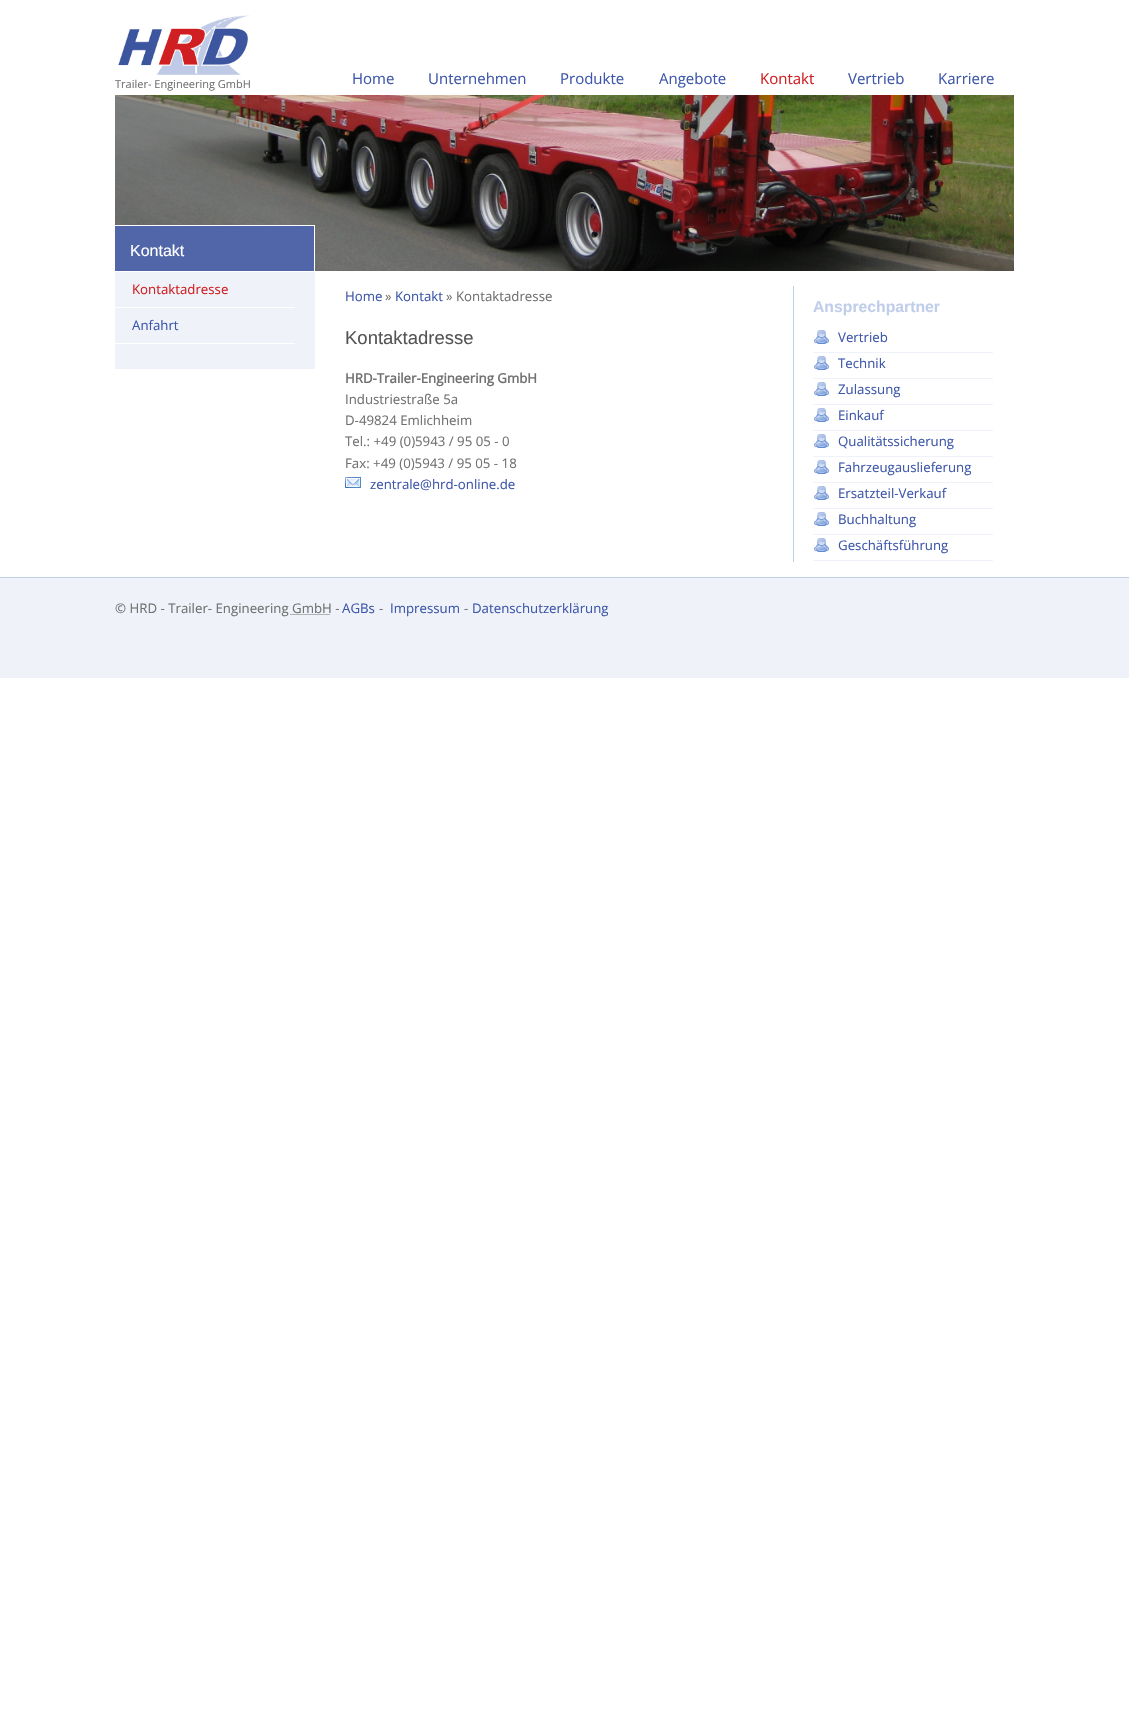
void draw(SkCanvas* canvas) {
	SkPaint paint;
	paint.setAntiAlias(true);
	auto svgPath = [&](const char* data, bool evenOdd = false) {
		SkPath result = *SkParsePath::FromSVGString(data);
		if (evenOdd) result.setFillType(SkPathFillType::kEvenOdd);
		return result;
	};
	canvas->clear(0xffffffff);
	canvas->drawImageRect(SkImages::DeferredFromEncodedData(SkData::MakeFromFileName("img1.png")), SkRect::MakeXYWH(118, 15, 131, 60), SkSamplingOptions());
	SkFont f1(fontMgr->matchFamilyStyle("Open Sans", SkFontStyle::Normal()), 11);
	f1.setSubpixel(true);
	paint.setColor(0xff717171);
	canvas->drawString("Trailer- Engineering GmbH", 115, 88, f1, paint);
	SkFont f2(fontMgr->matchFamilyStyle("Open Sans", SkFontStyle::Normal()), 15);
	f2.setSubpixel(true);
	paint.setColor(0xff3e57aa);
	canvas->drawString("Home", 352, 84, f2, paint);
	canvas->drawString("Unternehmen", 428, 84, f2, paint);
	canvas->drawString("Produkte", 560, 84, f2, paint);
	canvas->drawString("Angebote", 659, 84, f2, paint);
	paint.setColor(0xffd02023);
	canvas->drawString("Kontakt", 760, 84, f2, paint);
	paint.setColor(0xff3e57aa);
	canvas->drawString("Vertrieb", 848, 84, f2, paint);
	canvas->drawString("Karriere", 938, 84, f2, paint);
	canvas->drawImageRect(SkImages::DeferredFromEncodedData(SkData::MakeFromFileName("img2.png")), SkRect::MakeXYWH(115, 95, 899, 176), SkSamplingOptions());
	paint.setColor(0xffc1ceea);
	canvas->drawRect(SkRect::MakeXYWH(793, 286, 1, 276), paint);
	paint.setColor(0xff5166a8);
	canvas->drawRect(SkRect::MakeXYWH(115, 226, 199, 45), paint);
	paint.setColor(0xffffffff);
	canvas->drawRect(SkRect::MakeXYWH(115, 225, 200, 1), paint);
	canvas->drawRect(SkRect::MakeXYWH(314, 225, 1, 47), paint);
	SkFont f3(fontMgr->matchFamilyStyle("Liberation Sans", SkFontStyle::Normal()), 16);
	f3.setSubpixel(true);
	canvas->drawString("Kontakt", 130, 256, f3, paint);
	paint.setColor(0xffeff2f9);
	canvas->drawRect(SkRect::MakeXYWH(115, 272, 200, 97), paint);
	paint.setColor(0xffffffff);
	canvas->drawRect(SkRect::MakeXYWH(115, 307, 180, 1), paint);
	SkFont f4(fontMgr->matchFamilyStyle("Open Sans", SkFontStyle::Normal()), 13.25);
	f4.setSubpixel(true);
	paint.setColor(0xffd02023);
	canvas->drawString("Kontaktadresse", 132, 294, f4, paint);
	paint.setColor(0xffffffff);
	canvas->drawRect(SkRect::MakeXYWH(115, 343, 180, 1), paint);
	paint.setColor(0xff3e57aa);
	canvas->drawString("Anfahrt", 132, 330, f4, paint);
	canvas->drawString("Home", 345, 301, f4, paint);
	paint.setColor(0xff717171);
	canvas->drawString("»", 385, 301, f4, paint);
	paint.setColor(0xff3e57aa);
	canvas->drawString("Kontakt", 395, 301, f4, paint);
	paint.setColor(0xff717171);
	canvas->drawString("» Kontaktadresse", 446, 301, f4, paint);
	SkFont f5(fontMgr->matchFamilyStyle("Liberation Sans", SkFontStyle::Normal()), 18.5);
	f5.setSubpixel(true);
	paint.setColor(0xff555555);
	canvas->drawString("Kontaktadresse", 345, 344, f5, paint);
	SkFont f6(fontMgr->matchFamilyStyle("Open Sans", SkFontStyle::Bold()), 13.25);
	f6.setSubpixel(true);
	paint.setColor(0xff717171);
	canvas->drawString("HRD-Trailer-Engineering GmbH", 345, 383, f6, paint);
	canvas->drawString("Industriestraße 5a", 345, 404, f4, paint);
	canvas->drawString("D-49824 Emlichheim", 345, 425, f4, paint);
	canvas->drawString("Tel.: +49 (0)5943 / 95 05 - 0", 345, 446, f4, paint);
	canvas->drawString("Fax: +49 (0)5943 / 95 05 - 18", 345, 468, f4, paint);
	canvas->drawImageRect(SkImages::DeferredFromEncodedData(SkData::MakeFromFileName("img3.png")), SkRect::MakeXYWH(345, 477, 16, 11), SkSamplingOptions());
	paint.setColor(0xff3e57aa);
	canvas->drawString("zentrale@hrd-online.de", 370, 489, f4, paint);
	SkFont f7(fontMgr->matchFamilyStyle("Liberation Sans", SkFontStyle::Bold()), 15.75);
	f7.setSubpixel(true);
	paint.setColor(0xffc1ceea);
	canvas->drawString("Ansprechpartner", 813, 312, f7, paint);
	paint.setColor(0xffeff2f9);
	canvas->drawRect(SkRect::MakeXYWH(813, 352, 180, 1), paint);
	canvas->drawImageRect(SkImages::DeferredFromEncodedData(SkData::MakeFromFileName("img4.png")), SkRect::MakeXYWH(814, 330, 15, 14), SkSamplingOptions());
	paint.setColor(0xff3e57aa);
	canvas->drawString("Vertrieb", 838, 342, f4, paint);
	paint.setColor(0xffeff2f9);
	canvas->drawRect(SkRect::MakeXYWH(813, 378, 180, 1), paint);
	canvas->drawImageRect(SkImages::DeferredFromEncodedData(SkData::MakeFromFileName("img4.png")), SkRect::MakeXYWH(814, 356, 15, 14), SkSamplingOptions());
	paint.setColor(0xff3e57aa);
	canvas->drawString("Technik", 838, 368, f4, paint);
	paint.setColor(0xffeff2f9);
	canvas->drawRect(SkRect::MakeXYWH(813, 404, 180, 1), paint);
	canvas->drawImageRect(SkImages::DeferredFromEncodedData(SkData::MakeFromFileName("img4.png")), SkRect::MakeXYWH(814, 382, 15, 14), SkSamplingOptions());
	paint.setColor(0xff3e57aa);
	canvas->drawString("Zulassung", 838, 394, f4, paint);
	paint.setColor(0xffeff2f9);
	canvas->drawRect(SkRect::MakeXYWH(813, 430, 180, 1), paint);
	canvas->drawImageRect(SkImages::DeferredFromEncodedData(SkData::MakeFromFileName("img4.png")), SkRect::MakeXYWH(814, 408, 15, 14), SkSamplingOptions());
	paint.setColor(0xff3e57aa);
	canvas->drawString("Einkauf", 838, 420, f4, paint);
	paint.setColor(0xffeff2f9);
	canvas->drawRect(SkRect::MakeXYWH(813, 456, 180, 1), paint);
	canvas->drawImageRect(SkImages::DeferredFromEncodedData(SkData::MakeFromFileName("img4.png")), SkRect::MakeXYWH(814, 434, 15, 14), SkSamplingOptions());
	paint.setColor(0xff3e57aa);
	canvas->drawString("Qualitätssicherung", 838, 446, f4, paint);
	paint.setColor(0xffeff2f9);
	canvas->drawRect(SkRect::MakeXYWH(813, 482, 180, 1), paint);
	canvas->drawImageRect(SkImages::DeferredFromEncodedData(SkData::MakeFromFileName("img4.png")), SkRect::MakeXYWH(814, 460, 15, 14), SkSamplingOptions());
	paint.setColor(0xff3e57aa);
	canvas->drawString("Fahrzeugauslieferung", 838, 472, f4, paint);
	paint.setColor(0xffeff2f9);
	canvas->drawRect(SkRect::MakeXYWH(813, 508, 180, 1), paint);
	canvas->drawImageRect(SkImages::DeferredFromEncodedData(SkData::MakeFromFileName("img4.png")), SkRect::MakeXYWH(814, 486, 15, 14), SkSamplingOptions());
	paint.setColor(0xff3e57aa);
	canvas->drawString("Ersatzteil-Verkauf", 838, 498, f4, paint);
	paint.setColor(0xffeff2f9);
	canvas->drawRect(SkRect::MakeXYWH(813, 534, 180, 1), paint);
	canvas->drawImageRect(SkImages::DeferredFromEncodedData(SkData::MakeFromFileName("img4.png")), SkRect::MakeXYWH(814, 512, 15, 14), SkSamplingOptions());
	paint.setColor(0xff3e57aa);
	canvas->drawString("Buchhaltung", 838, 524, f4, paint);
	paint.setColor(0xffeff2f9);
	canvas->drawRect(SkRect::MakeXYWH(813, 560, 180, 1), paint);
	canvas->drawImageRect(SkImages::DeferredFromEncodedData(SkData::MakeFromFileName("img4.png")), SkRect::MakeXYWH(814, 538, 15, 14), SkSamplingOptions());
	paint.setColor(0xff3e57aa);
	canvas->drawString("Geschäftsführung", 838, 550, f4, paint);
	paint.setColor(0xffeff2f9);
	canvas->drawRect(SkRect::MakeXYWH(0, 578, 1129, 100), paint);
	paint.setColor(0xffc1ceea);
	canvas->drawRect(SkRect::MakeXYWH(0, 577, 1129, 1), paint);
	paint.setColor(0xff717171);
	canvas->drawString("© HRD - Trailer- Engineering GmbH -", 115, 613, f4, paint);
	paint.setStroke(true);
	paint.setStrokeWidth(1);
	paint.setPathEffect(SkDashPathEffect::Make({{1, 1}}, 0));
	canvas->drawPath(svgPath("M290.5 614.5H330.5"), paint);
	paint.setPathEffect(nullptr);
	paint.setStroke(false);
	paint.setColor(0xff3e57aa);
	canvas->drawString("AGBs", 342, 613, f4, paint);
	paint.setColor(0xff717171);
	canvas->drawString("-", 379, 613, f4, paint);
	paint.setColor(0xff3e57aa);
	canvas->drawString("Impressum", 390, 613, f4, paint);
	paint.setColor(0xff717171);
	canvas->drawString("-", 464, 613, f4, paint);
	paint.setColor(0xff3e57aa);
	canvas->drawString("Datenschutzerklärung", 472, 613, f4, paint);
}
